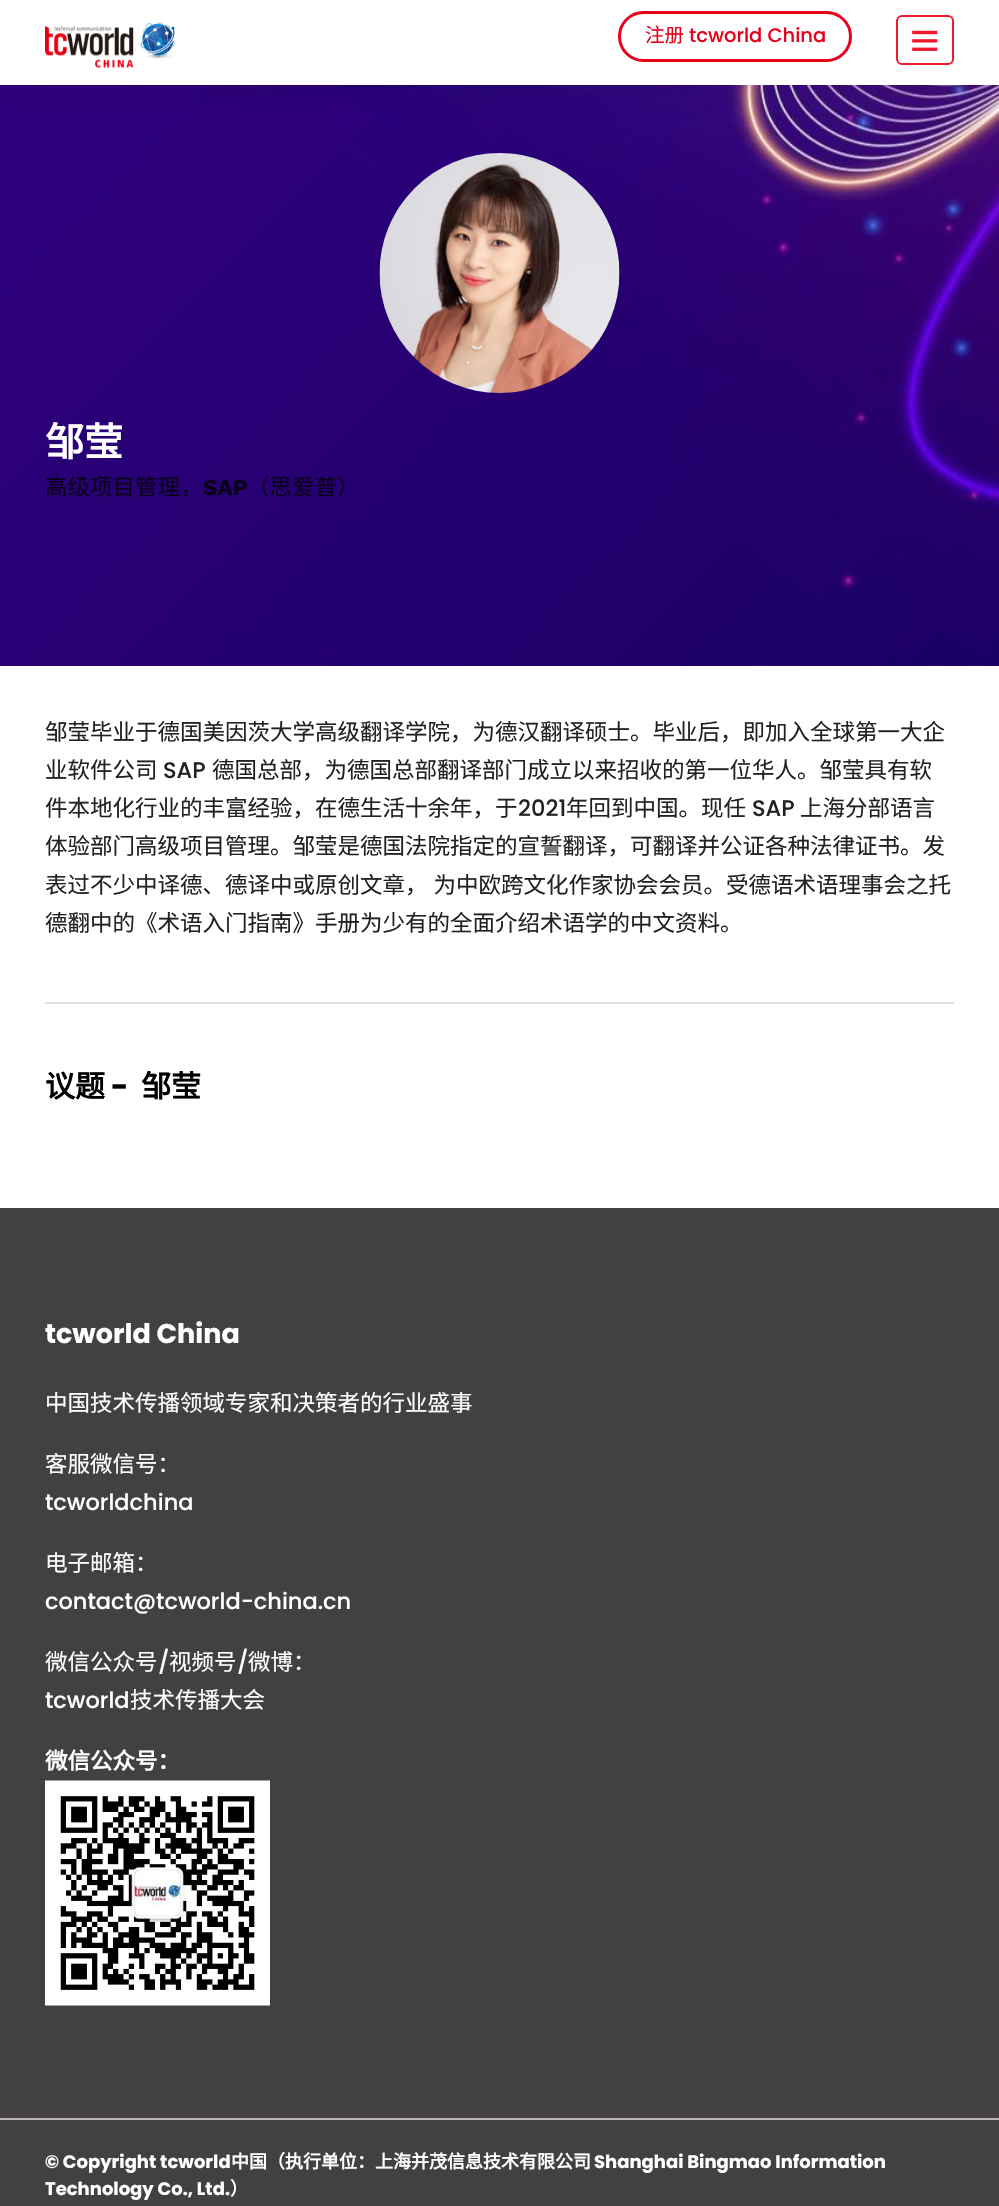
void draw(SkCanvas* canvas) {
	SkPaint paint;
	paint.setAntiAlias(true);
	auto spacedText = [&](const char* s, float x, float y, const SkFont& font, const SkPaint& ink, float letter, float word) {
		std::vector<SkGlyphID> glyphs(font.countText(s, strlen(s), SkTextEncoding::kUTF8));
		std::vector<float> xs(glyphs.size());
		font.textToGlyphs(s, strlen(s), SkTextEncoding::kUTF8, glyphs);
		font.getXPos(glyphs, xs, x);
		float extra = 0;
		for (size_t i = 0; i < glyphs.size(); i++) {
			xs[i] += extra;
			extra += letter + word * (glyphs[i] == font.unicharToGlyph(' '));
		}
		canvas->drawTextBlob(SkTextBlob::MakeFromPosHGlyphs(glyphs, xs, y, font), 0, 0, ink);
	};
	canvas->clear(0xffffffff);
	canvas->drawImageRect(SkImages::DeferredFromEncodedData(SkData::MakeFromFileName("img3.png")), SkRect::MakeXYWH(0, 85, 999, 581), SkSamplingOptions());
	canvas->drawImageRect(SkImages::DeferredFromEncodedData(SkData::MakeFromFileName("img4.png")), SkRect::MakeXYWH(379, 153, 241, 240), SkSamplingOptions());
	paint.setColor(0x1a000000);
	paint.setMaskFilter(SkMaskFilter::MakeBlur(kNormal_SkBlurStyle, 22.5));
	canvas->drawRect(SkRect::MakeXYWH(0, 2, 999, 84), paint);
	paint.setMaskFilter(nullptr);
	paint.setColor(0xffffffff);
	canvas->drawRect(SkRect::MakeXYWH(0, 0, 999, 85), paint);
	canvas->drawImageRect(SkImages::DeferredFromEncodedData(SkData::MakeFromFileName("img1.png")), SkRect::MakeXYWH(45, 22, 130, 46), SkSamplingOptions());
	paint.setStroke(true);
	paint.setStrokeWidth(3);
	paint.setColor(0xffe4031b);
	canvas->drawRoundRect(SkRect::MakeXYWH(619.5, 12.5, 231, 48), 24, 24, paint);
	SkFont f1(fontMgr->matchFamilyStyle("Noto Sans CJK SC", SkFontStyle::Normal()), 19.5);
	f1.setSubpixel(true);
	paint.setStroke(false);
	canvas->drawString("注册", 645, 42, f1, paint);
	SkFont f2(fontMgr->matchFamilyStyle("Poppins", SkFontStyle(500, SkFontStyle::kNormal_Width, SkFontStyle::kUpright_Slant)), 19.5);
	f2.setSubpixel(true);
	canvas->drawString("tcworld China", 689, 42, f2, paint);
	paint.setStroke(true);
	paint.setStrokeWidth(2);
	paint.setColor(0xffee192a);
	canvas->drawRoundRect(SkRect::MakeXYWH(897, 16, 56, 48), 5, 5, paint);
	canvas->drawImageRect(SkImages::DeferredFromEncodedData(SkData::MakeFromFileName("img2.png")), SkRect::MakeXYWH(912, 30, 26, 21), SkSamplingOptions());
	SkFont f3(fontMgr->matchFamilyStyle("Noto Sans CJK SC", SkFontStyle::Bold()), 39);
	f3.setSubpixel(true);
	paint.setStroke(false);
	paint.setColor(0xffffffff);
	canvas->drawString("邹莹", 45, 456, f3, paint);
	SkFont f4(fontMgr->matchFamilyStyle("Noto Sans CJK SC", SkFontStyle::Normal()), 22.5);
	f4.setSubpixel(true);
	paint.setColor(0xff080017);
	canvas->drawString("高级项目管理，", 45, 495, f4, paint);
	SkFont f5(fontMgr->matchFamilyStyle("Work Sans", SkFontStyle::Bold()), 22.5);
	f5.setSubpixel(true);
	canvas->drawString("SAP", 203, 495, f5, paint);
	canvas->drawString("（思爱普）", 247, 495, f4, paint);
	paint.setColor(0xff222222);
	canvas->drawString("邹莹毕业于德国美因茨大学高级翻译学院，为德汉翻译硕士。毕业后，即加入全球第一大企", 45, 740, f4, paint);
	canvas->drawString("业软件公司", 45, 778, f4, paint);
	SkFont f6(fontMgr->matchFamilyStyle("Poppins", SkFontStyle(500, SkFontStyle::kNormal_Width, SkFontStyle::kUpright_Slant)), 22.5);
	f6.setSubpixel(true);
	canvas->drawString("SAP", 163, 778, f6, paint);
	canvas->drawString("德国总部，为德国总部翻译部门成立以来招收的第一位华人。邹莹具有软", 212, 778, f4, paint);
	canvas->drawString("件本地化行业的丰富经验，在德生活十余年，于", 45, 816, f4, paint);
	canvas->drawString("2021", 518, 816, f6, paint);
	canvas->drawString("年回到中国。现任", 566, 816, f4, paint);
	canvas->drawString("SAP", 752, 816, f6, paint);
	canvas->drawString("上海分部语言", 800, 816, f4, paint);
	canvas->drawString("体验部门高级项目管理。邹莹是德国法院指定的宣誓翻译，可翻译并公证各种法律证书。发", 45, 854, f4, paint);
	spacedText("表过不少中译德、德译中或原创文章， 为中欧跨文化作家协会会员。受德语术语理事会之托", 45, 893, f4, paint, 0, 1);
	canvas->drawString("德翻中的《术语入门指南》手册为少有的全面介绍术语学的中文资料。", 45, 931, f4, paint);
	paint.setColor(0xffdce0e0);
	canvas->drawRect(SkRect::MakeXYWH(45, 1002, 909, 2), paint);
	SkFont f7(fontMgr->matchFamilyStyle("Noto Sans CJK SC", SkFontStyle::Bold()), 30);
	f7.setSubpixel(true);
	paint.setColor(0xff000000);
	canvas->drawString("议题", 45, 1097, f7, paint);
	SkFont f8(fontMgr->matchFamilyStyle("Poppins", SkFontStyle::Bold()), 30);
	f8.setSubpixel(true);
	canvas->drawString("-", 111, 1097, f8, paint);
	canvas->drawString("邹莹", 141, 1097, f7, paint);
	paint.setColor(0xff434040);
	canvas->drawRect(SkRect::MakeXYWH(0, 1208, 999, 910), paint);
	SkFont f9(fontMgr->matchFamilyStyle("Poppins", SkFontStyle::Bold()), 27);
	f9.setSubpixel(true);
	paint.setColor(0xffffffff);
	canvas->drawString("tcworld China", 45, 1343, f9, paint);
	canvas->drawString("中国技术传播领域专家和决策者的行业盛事", 45, 1411, f4, paint);
	canvas->drawString("客服微信号：", 45, 1472, f4, paint);
	canvas->drawString("tcworldchina", 45, 1510, f6, paint);
	canvas->drawString("电子邮箱：", 45, 1571, f4, paint);
	canvas->drawString("contact@tcworld-china.cn", 45, 1609, f6, paint);
	canvas->drawString("微信公众号", 45, 1670, f4, paint);
	canvas->drawString("/", 158, 1670, f6, paint);
	canvas->drawString("视频号", 169, 1670, f4, paint);
	canvas->drawString("/", 237, 1670, f6, paint);
	canvas->drawString("微博：", 248, 1670, f4, paint);
	canvas->drawString("tcworld", 45, 1708, f6, paint);
	canvas->drawString("技术传播大会", 130, 1708, f4, paint);
	SkFont f10(fontMgr->matchFamilyStyle("Noto Sans CJK SC", SkFontStyle::Bold()), 22.5);
	f10.setSubpixel(true);
	canvas->drawString("微信公众号：", 45, 1769, f10, paint);
	canvas->drawImageRect(SkImages::DeferredFromEncodedData(SkData::MakeFromFileName("img5.png")), SkRect::MakeXYWH(45, 1780, 225, 226), SkSamplingOptions());
	paint.setColor(0xff434040);
	canvas->drawRect(SkRect::MakeXYWH(0, 2120, 999, 86), paint);
	paint.setColor(0xffbdb6b6);
	canvas->drawRect(SkRect::MakeXYWH(0, 2118, 999, 2), paint);
	SkFont f11(fontMgr->matchFamilyStyle("Poppins", SkFontStyle::Bold()), 18);
	f11.setSubpixel(true);
	paint.setColor(0xffffffff);
	canvas->drawString("© Copyright tcworld", 45, 2168, f11, paint);
	SkFont f12(fontMgr->matchFamilyStyle("Noto Sans CJK SC", SkFontStyle::Bold()), 18);
	f12.setSubpixel(true);
	canvas->drawString("中国（执行单位：上海并茂信息技术有限公司", 231, 2168, f12, paint);
	canvas->drawString("Shanghai Bingmao Information", 594, 2168, f11, paint);
	canvas->drawString("Technology Co., Ltd.", 45, 2195, f11, paint);
	canvas->drawString("）", 230, 2195, f12, paint);
}
